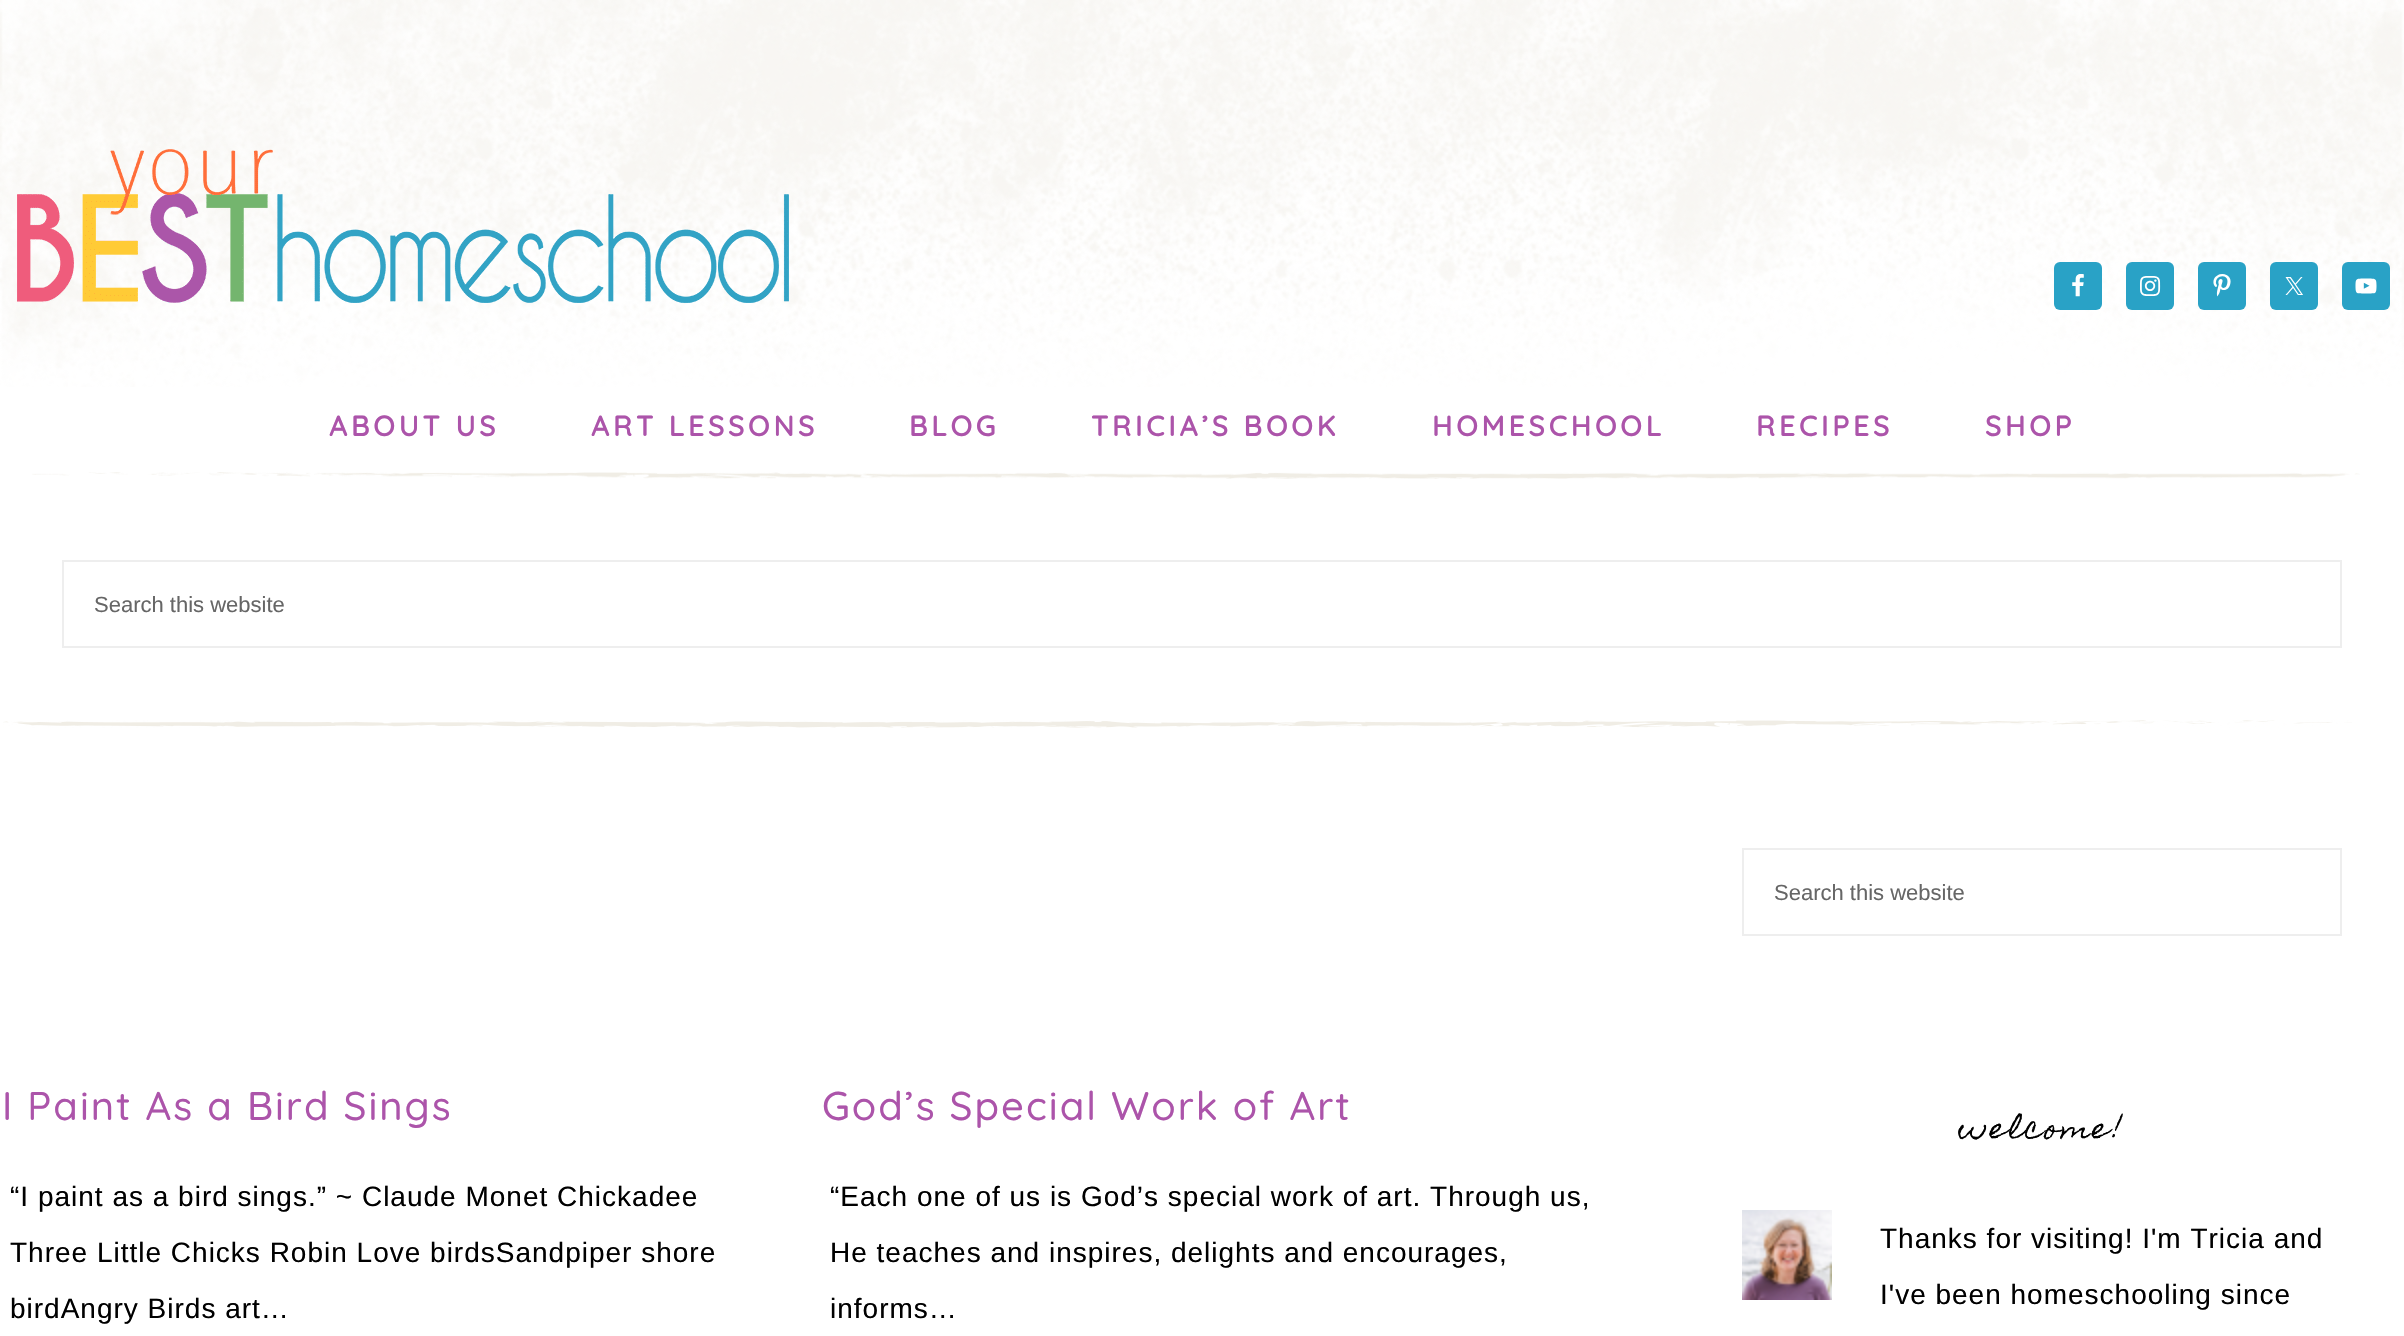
void draw(SkCanvas* canvas) {
	SkPaint paint;
	paint.setAntiAlias(true);
	auto spacedText = [&](const char* s, float x, float y, const SkFont& font, const SkPaint& ink, float letter, float word) {
		std::vector<SkGlyphID> glyphs(font.countText(s, strlen(s), SkTextEncoding::kUTF8));
		std::vector<float> xs(glyphs.size());
		font.textToGlyphs(s, strlen(s), SkTextEncoding::kUTF8, glyphs);
		font.getXPos(glyphs, xs, x);
		float extra = 0;
		for (size_t i = 0; i < glyphs.size(); i++) {
			xs[i] += extra;
			extra += letter + word * (glyphs[i] == font.unicharToGlyph(' '));
		}
		canvas->drawTextBlob(SkTextBlob::MakeFromPosHGlyphs(glyphs, xs, y, font), 0, 0, ink);
	};
	canvas->clear(0xffffffff);
	canvas->drawImageRect(SkImages::DeferredFromEncodedData(SkData::MakeFromFileName("img1.png")), SkRect::MakeXYWH(0, 0, 2404, 387), SkSamplingOptions());
	canvas->drawImageRect(SkImages::DeferredFromEncodedData(SkData::MakeFromFileName("img2.png")), SkRect::MakeXYWH(17, 149, 772, 154), SkSamplingOptions());
	paint.setColor(0xff29a2c6);
	canvas->drawRoundRect(SkRect::MakeXYWH(2054, 262, 48, 48), 6, 6, paint);
	canvas->drawImageRect(SkImages::DeferredFromEncodedData(SkData::MakeFromFileName("img3.png")), SkRect::MakeXYWH(2072, 274, 12, 23), SkSamplingOptions());
	canvas->drawRoundRect(SkRect::MakeXYWH(2126, 262, 48, 48), 6, 6, paint);
	canvas->drawImageRect(SkImages::DeferredFromEncodedData(SkData::MakeFromFileName("img4.png")), SkRect::MakeXYWH(2140, 276, 21, 20), SkSamplingOptions());
	canvas->drawRoundRect(SkRect::MakeXYWH(2198, 262, 48, 48), 6, 6, paint);
	canvas->drawImageRect(SkImages::DeferredFromEncodedData(SkData::MakeFromFileName("img5.png")), SkRect::MakeXYWH(2213, 274, 18, 23), SkSamplingOptions());
	canvas->drawRoundRect(SkRect::MakeXYWH(2270, 262, 48, 48), 6, 6, paint);
	canvas->drawImageRect(SkImages::DeferredFromEncodedData(SkData::MakeFromFileName("img6.png")), SkRect::MakeXYWH(2285, 277, 18, 18), SkSamplingOptions());
	canvas->drawRoundRect(SkRect::MakeXYWH(2342, 262, 48, 48), 6, 6, paint);
	canvas->drawImageRect(SkImages::DeferredFromEncodedData(SkData::MakeFromFileName("img7.png")), SkRect::MakeXYWH(2355, 278, 22, 16), SkSamplingOptions());
	canvas->drawImageRect(SkImages::DeferredFromEncodedData(SkData::MakeFromFileName("img8.png")), SkRect::MakeXYWH(32, 472, 2328, 7), SkSamplingOptions());
	SkFont f1(fontMgr->matchFamilyStyle("Quicksand", SkFontStyle::Bold()), 28);
	f1.setSubpixel(true);
	paint.setColor(0xffac54aa);
	spacedText("ABOUT US", 329, 436, f1, paint, 4, 0);
	spacedText("ART LESSONS", 591, 436, f1, paint, 4, 0);
	spacedText("BLOG", 909, 436, f1, paint, 4, 0);
	spacedText("TRICIA’S BOOK", 1091, 436, f1, paint, 4, 0);
	spacedText("HOMESCHOOL", 1432, 436, f1, paint, 4, 0);
	spacedText("RECIPES", 1756, 436, f1, paint, 4, 0);
	spacedText("SHOP", 1985, 436, f1, paint, 4, 0);
	canvas->drawImageRect(SkImages::DeferredFromEncodedData(SkData::MakeFromFileName("img9.png")), SkRect::MakeXYWH(3, 720, 2349, 8), SkSamplingOptions());
	paint.setStroke(true);
	paint.setStrokeWidth(2);
	paint.setColor(0xffeeeeee);
	canvas->drawRect(SkRect::MakeXYWH(63, 561, 2278, 86), paint);
	SkFont f2(fontMgr->matchFamilyStyle("Arimo", SkFontStyle::Normal()), 22);
	f2.setSubpixel(true);
	paint.setStroke(false);
	paint.setColor(0xff666666);
	canvas->drawString("Search this website", 94, 612, f2, paint);
	SkFont f3(fontMgr->matchFamilyStyle("Quicksand", SkFontStyle(300, SkFontStyle::kNormal_Width, SkFontStyle::kUpright_Slant)), 40);
	f3.setSubpixel(true);
	paint.setColor(0xffac54aa);
	spacedText("I Paint As a Bird Sings", 2, 1120, f3, paint, 2, 0);
	SkFont f4(fontMgr->matchFamilyStyle("Arimo", SkFontStyle::Normal()), 28);
	f4.setSubpixel(true);
	paint.setColor(0xff000000);
	spacedText("“I paint as a bird sings.” ~ Claude Monet Chickadee", 10, 1206, f4, paint, 1, 0);
	spacedText("Three Little Chicks Robin Love birdsSandpiper shore", 10, 1262, f4, paint, 1, 0);
	spacedText("birdAngry Birds art…", 10, 1318, f4, paint, 1, 0);
	paint.setColor(0xffac54aa);
	spacedText("God’s Special Work of Art", 822, 1120, f3, paint, 2, 0);
	paint.setColor(0xff000000);
	spacedText("“Each one of us is God’s special work of art. Through us,", 830, 1206, f4, paint, 1, 0);
	spacedText("He teaches and inspires, delights and encourages,", 830, 1262, f4, paint, 1, 0);
	spacedText("informs…", 830, 1318, f4, paint, 1, 0);
	paint.setStroke(true);
	paint.setColor(0xffeeeeee);
	canvas->drawRect(SkRect::MakeXYWH(1743, 849, 598, 86), paint);
	paint.setStroke(false);
	paint.setColor(0xff666666);
	canvas->drawString("Search this website", 1774, 900, f2, paint);
	SkFont f5(fontMgr->matchFamilyStyle("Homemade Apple", SkFontStyle::Normal()), 28);
	f5.setSubpixel(true);
	paint.setColor(0xff000000);
	spacedText("welcome!", 1959, 1138, f5, paint, 2, 0);
	canvas->drawImageRect(SkImages::DeferredFromEncodedData(SkData::MakeFromFileName("img10.png")), SkRect::MakeXYWH(1742, 1210, 90, 90), SkSamplingOptions());
	spacedText("Thanks for visiting! I'm Tricia and", 1880, 1248, f4, paint, 1, 0);
	spacedText("I've been homeschooling since", 1880, 1304, f4, paint, 1, 0);
}
